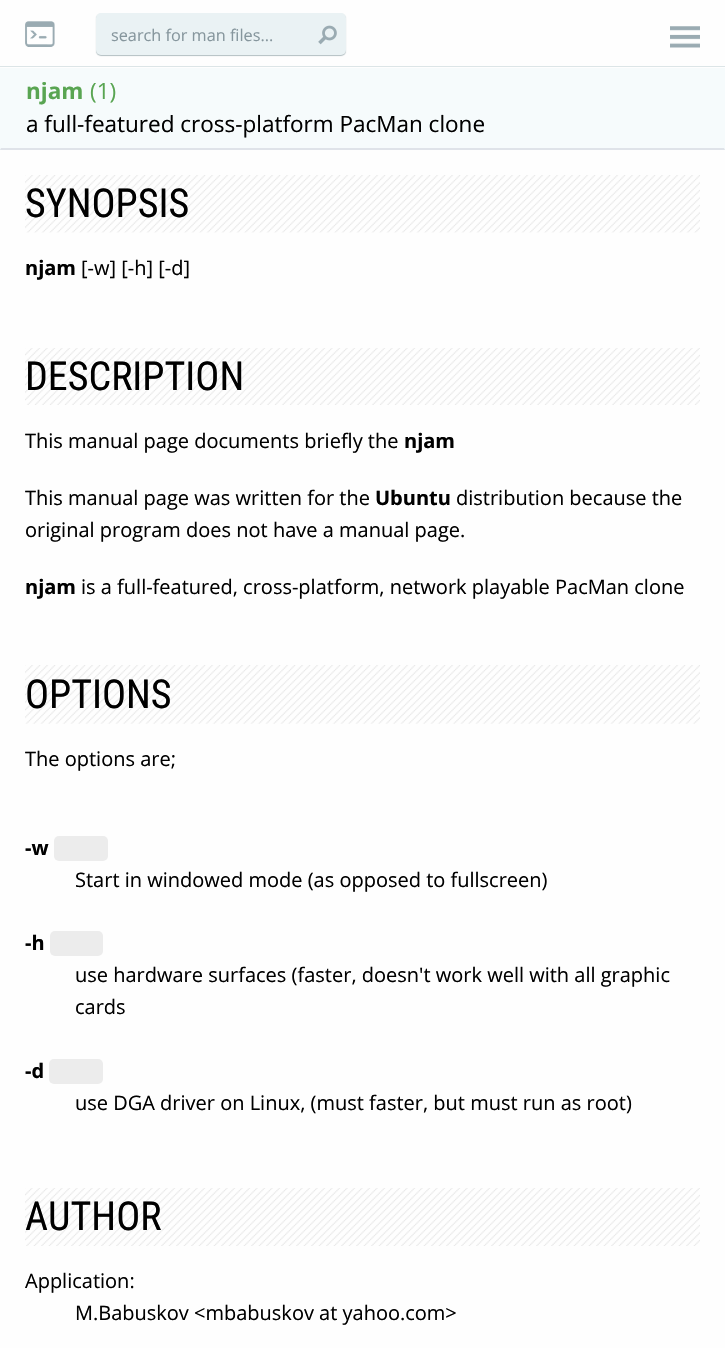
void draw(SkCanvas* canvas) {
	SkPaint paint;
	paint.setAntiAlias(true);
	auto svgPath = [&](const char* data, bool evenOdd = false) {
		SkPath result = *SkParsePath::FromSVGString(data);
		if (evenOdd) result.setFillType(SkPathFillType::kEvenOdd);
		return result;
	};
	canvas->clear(0xfffefefe);
	paint.setColor(0xffdce5e7);
	canvas->drawRect(SkRect::MakeXYWH(0, 66, 725, 1), paint);
	canvas->drawImageRect(SkImages::DeferredFromEncodedData(SkData::MakeFromFileName("img1.png")), SkRect::MakeXYWH(25, 21, 30, 26), SkSamplingOptions());
	paint.setColor(0x4d062f37);
	paint.setMaskFilter(SkMaskFilter::MakeBlur(kNormal_SkBlurStyle, 0.5));
	canvas->drawRoundRect(SkRect::MakeXYWH(96, 14, 250, 42), 5, 5, paint);
	paint.setMaskFilter(nullptr);
	paint.setColor(0xffeaf2f4);
	canvas->drawRoundRect(SkRect::MakeXYWH(96, 13, 250, 42), 5, 5, paint);
	SkFont f1(fontMgr->matchFamilyStyle("Open Sans", SkFontStyle::Normal()), 16.25);
	f1.setSubpixel(true);
	paint.setColor(0xff86969d);
	canvas->drawString("search for man files...", 111, 41, f1, paint);
	canvas->drawImageRect(SkImages::DeferredFromEncodedData(SkData::MakeFromFileName("img2.png")), SkRect::MakeXYWH(318, 25, 19, 20), SkSamplingOptions());
	canvas->drawImageRect(SkImages::DeferredFromEncodedData(SkData::MakeFromFileName("img3.png")), SkRect::MakeXYWH(670, 26, 30, 22), SkSamplingOptions());
	paint.setColor(0xfff6fbfc);
	canvas->drawRect(SkRect::MakeXYWH(0, 68, 725, 82), paint);
	paint.setColor(0xffdfe3e9);
	canvas->drawPath(svgPath("M725 150H0L1 148H724Z"), paint);
	SkFont f2(fontMgr->matchFamilyStyle("Open Sans", SkFontStyle::Bold()), 22.5);
	f2.setSubpixel(true);
	paint.setColor(0xff59a552);
	canvas->drawString("njam", 26, 99, f2, paint);
	SkFont f3(fontMgr->matchFamilyStyle("Open Sans", SkFontStyle::Normal()), 22.5);
	f3.setSubpixel(true);
	canvas->drawString("(1)", 90, 99, f3, paint);
	paint.setColor(0xff000000);
	canvas->drawString("a full-featured cross-platform PacMan clone", 26, 132, f3, paint);
	canvas->drawImageRect(SkImages::DeferredFromEncodedData(SkData::MakeFromFileName("img4.png")), SkRect::MakeXYWH(25, 175, 675, 58), SkSamplingOptions());
	SkFont f4(fontMgr->matchFamilyStyle("Roboto Condensed", SkFontStyle::Normal()), 40);
	f4.setSubpixel(true);
	canvas->drawString("SYNOPSIS", 25, 217, f4, paint);
	SkFont f5(fontMgr->matchFamilyStyle("Open Sans", SkFontStyle::Bold()), 20);
	f5.setSubpixel(true);
	canvas->drawString("njam", 25, 275, f5, paint);
	SkFont f6(fontMgr->matchFamilyStyle("Open Sans", SkFontStyle::Normal()), 20);
	f6.setSubpixel(true);
	canvas->drawString("[-w] [-h] [-d]", 81, 275, f6, paint);
	canvas->drawImageRect(SkImages::DeferredFromEncodedData(SkData::MakeFromFileName("img5.png")), SkRect::MakeXYWH(25, 348, 675, 57), SkSamplingOptions());
	canvas->drawString("DESCRIPTION", 25, 390, f4, paint);
	canvas->drawString("This manual page documents briefly the", 25, 448, f6, paint);
	canvas->drawString("njam", 404, 448, f5, paint);
	canvas->drawString("This manual page was written for the", 25, 505, f6, paint);
	canvas->drawString("Ubuntu", 375, 505, f5, paint);
	canvas->drawString("distribution because the", 456, 505, f6, paint);
	canvas->drawString("original program does not have a manual page.", 25, 537, f6, paint);
	canvas->drawString("njam", 25, 594, f5, paint);
	canvas->drawString("is a full-featured, cross-platform, network playable PacMan clone", 81, 594, f6, paint);
	canvas->drawImageRect(SkImages::DeferredFromEncodedData(SkData::MakeFromFileName("img6.png")), SkRect::MakeXYWH(25, 665, 675, 59), SkSamplingOptions());
	canvas->drawString("OPTIONS", 25, 708, f4, paint);
	canvas->drawString("The options are;", 25, 766, f6, paint);
	canvas->drawString("-w", 25, 855, f5, paint);
	paint.setColor(0xffececec);
	canvas->drawRoundRect(SkRect::MakeXYWH(54, 836, 54, 25), 5, 5, paint);
	paint.setColor(0xff000000);
	canvas->drawString("Start in windowed mode (as opposed to fullscreen)", 75, 887, f6, paint);
	canvas->drawString("-h", 25, 950, f5, paint);
	paint.setColor(0xffececec);
	canvas->drawRoundRect(SkRect::MakeXYWH(50, 931, 53, 25), 5, 5, paint);
	paint.setColor(0xff000000);
	canvas->drawString("use hardware surfaces (faster, doesn't work well with all graphic", 75, 982, f6, paint);
	canvas->drawString("cards", 75, 1014, f6, paint);
	canvas->drawString("-d", 25, 1078, f5, paint);
	paint.setColor(0xffececec);
	canvas->drawRoundRect(SkRect::MakeXYWH(49, 1059, 54, 25), 5, 5, paint);
	paint.setColor(0xff000000);
	canvas->drawString("use DGA driver on Linux, (must faster, but must run as root)", 75, 1110, f6, paint);
	canvas->drawImageRect(SkImages::DeferredFromEncodedData(SkData::MakeFromFileName("img7.png")), SkRect::MakeXYWH(25, 1188, 675, 58), SkSamplingOptions());
	canvas->drawString("AUTHOR", 25, 1230, f4, paint);
	canvas->drawString("Application:", 25, 1288, f6, paint);
	canvas->drawString("M.Babuskov <mbabuskov at yahoo.com>", 75, 1320, f6, paint);
}
